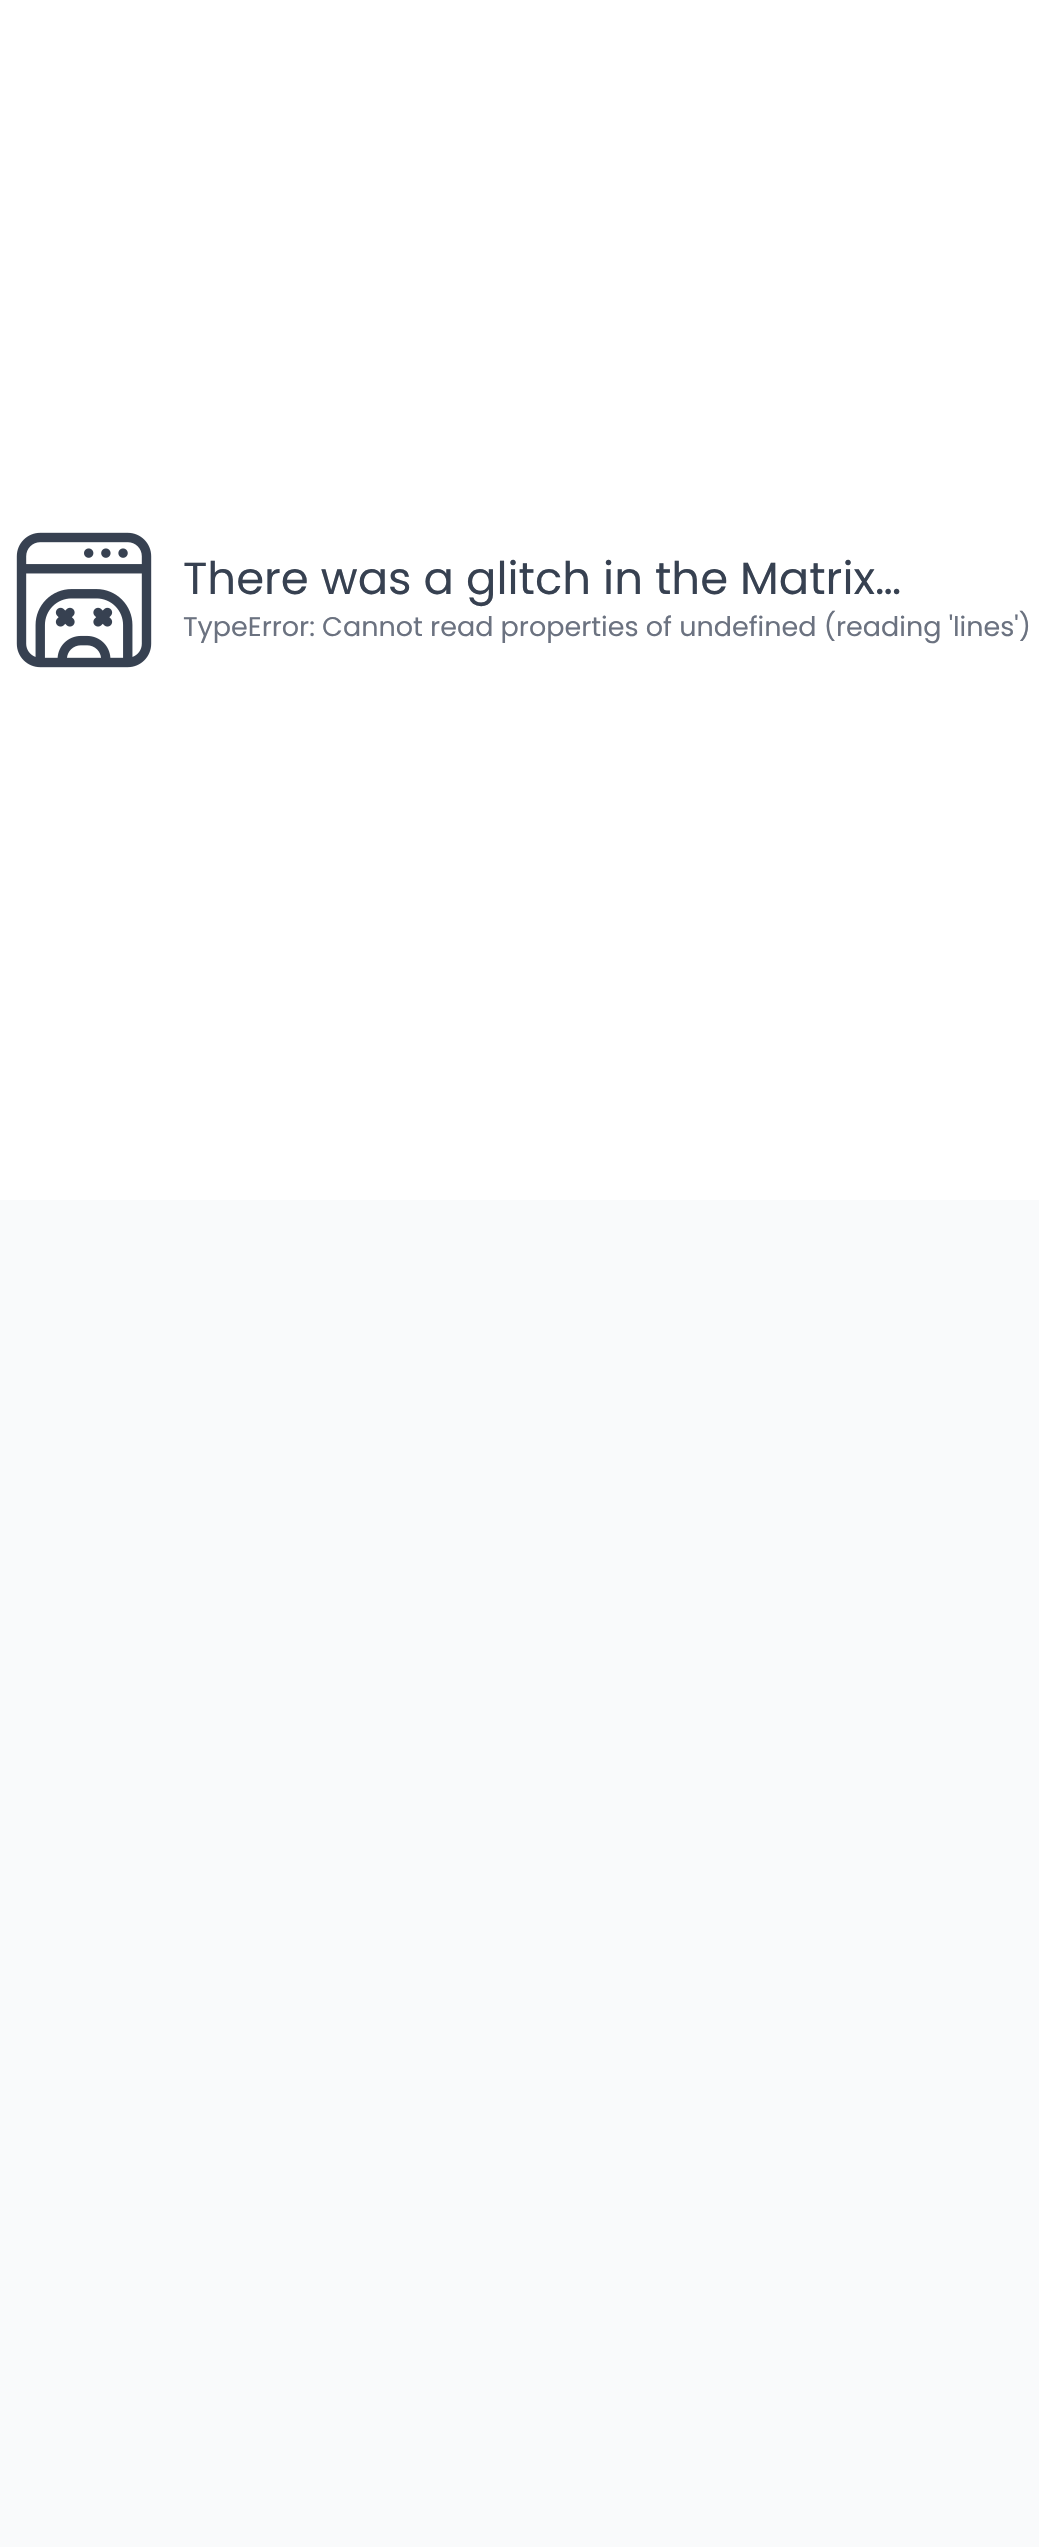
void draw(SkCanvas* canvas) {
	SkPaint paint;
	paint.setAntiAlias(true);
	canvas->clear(0xfff9fafb);
	paint.setColor(0xffffffff);
	canvas->drawRect(SkRect::MakeXYWH(0, 0, 1039, 1200), paint);
	canvas->drawImageRect(SkImages::DeferredFromEncodedData(SkData::MakeFromFileName("img1.png")), SkRect::MakeXYWH(16, 532, 136, 136), SkSamplingOptions());
	SkFont f1(fontMgr->matchFamilyStyle("Poppins", SkFontStyle::Normal()), 45);
	f1.setSubpixel(true);
	paint.setColor(0xff374151);
	canvas->drawString("There was a glitch in the Matrix…", 183, 594, f1, paint);
	SkFont f2(fontMgr->matchFamilyStyle("Poppins", SkFontStyle::Normal()), 27);
	f2.setSubpixel(true);
	paint.setColor(0xff6b7280);
	canvas->drawString("TypeError: Cannot read properties of undefined (reading 'lines')", 183, 636, f2, paint);
}
